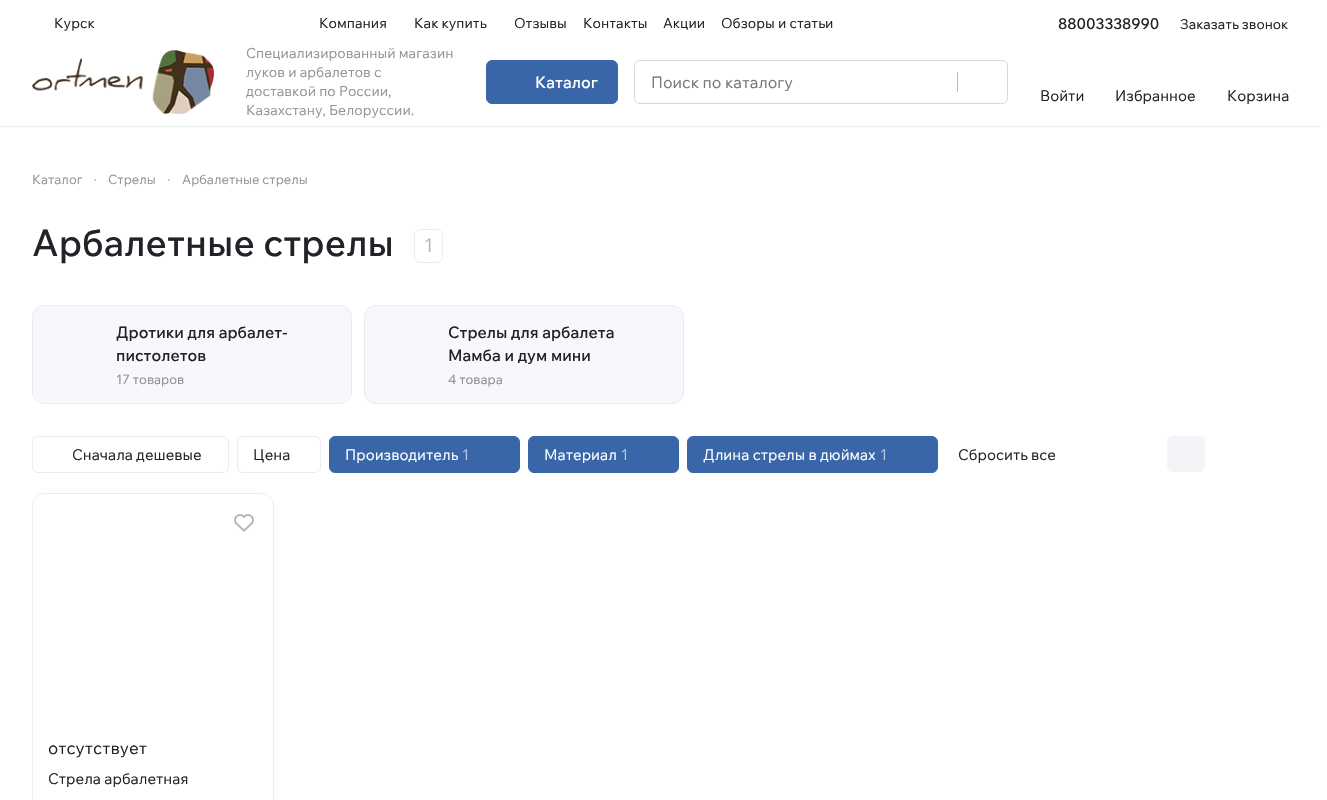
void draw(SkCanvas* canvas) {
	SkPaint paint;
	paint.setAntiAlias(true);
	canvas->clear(0xffffffff);
	paint.setColor(0xffededed);
	canvas->drawRect(SkRect::MakeXYWH(0, 126, 1321, 1), paint);
	SkFont f1(fontMgr->matchFamilyStyle("Wix Madefor Text", SkFontStyle::Normal()), 14);
	f1.setSubpixel(true);
	paint.setColor(0xff222228);
	canvas->drawString("Курск", 54, 28, f1, paint);
	canvas->drawString("Компания", 319, 28, f1, paint);
	canvas->drawString("Как купить", 414, 28, f1, paint);
	canvas->drawString("Отзывы", 514, 28, f1, paint);
	canvas->drawString("Контакты", 583, 28, f1, paint);
	canvas->drawString("Акции", 663, 28, f1, paint);
	canvas->drawString("Обзоры и статьи", 721, 28, f1, paint);
	SkFont f2(fontMgr->matchFamilyStyle("Wix Madefor Text", SkFontStyle(500, SkFontStyle::kNormal_Width, SkFontStyle::kUpright_Slant)), 15);
	f2.setSubpixel(true);
	canvas->drawString("88003338990", 1058, 29, f2, paint);
	SkFont f3(fontMgr->matchFamilyStyle("Wix Madefor Text", SkFontStyle::Normal()), 13.75);
	f3.setSubpixel(true);
	canvas->drawString("Заказать звонок", 1180, 29, f3, paint);
	canvas->drawImageRect(SkImages::DeferredFromEncodedData(SkData::MakeFromFileName("img1.png")), SkRect::MakeXYWH(32, 50, 182, 64), SkSamplingOptions());
	paint.setColor(0xff959598);
	canvas->drawString("Специализированный магазин", 246, 58, f1, paint);
	canvas->drawString("луков и арбалетов с", 246, 77, f1, paint);
	canvas->drawString("доставкой по России,", 246, 96, f1, paint);
	canvas->drawString("Казахстану, Белоруссии.", 246, 115, f1, paint);
	paint.setColor(0xff3966a8);
	canvas->drawRoundRect(SkRect::MakeXYWH(486.5, 60.5, 131, 43), 5.5, 5.5, paint);
	paint.setStroke(true);
	paint.setStrokeWidth(1);
	canvas->drawRoundRect(SkRect::MakeXYWH(486.5, 60.5, 131, 43), 5.5, 5.5, paint);
	SkFont f4(fontMgr->matchFamilyStyle("Wix Madefor Text", SkFontStyle(500, SkFontStyle::kNormal_Width, SkFontStyle::kUpright_Slant)), 16);
	f4.setSubpixel(true);
	paint.setStroke(false);
	paint.setColor(0xffffffff);
	canvas->drawString("Каталог", 535, 88, f4, paint);
	paint.setStroke(true);
	paint.setColor(0xffd7d8da);
	canvas->drawRoundRect(SkRect::MakeXYWH(634.5, 60.5, 373, 43), 5.5, 5.5, paint);
	SkFont f5(fontMgr->matchFamilyStyle("Wix Madefor Text", SkFontStyle::Normal()), 16);
	f5.setSubpixel(true);
	paint.setStroke(false);
	paint.setColor(0xff757575);
	canvas->drawString("Поиск по каталогу", 651, 88, f5, paint);
	paint.setColor(0xffbdbdbf);
	canvas->drawRect(SkRect::MakeXYWH(957, 72, 1, 20), paint);
	SkFont f6(fontMgr->matchFamilyStyle("Wix Madefor Text", SkFontStyle::Normal()), 15);
	f6.setSubpixel(true);
	paint.setColor(0xff222228);
	canvas->drawString("Войти", 1040, 101, f6, paint);
	canvas->drawString("Избранное", 1115, 101, f6, paint);
	canvas->drawString("Корзина", 1227, 101, f6, paint);
	SkFont f7(fontMgr->matchFamilyStyle("Wix Madefor Text", SkFontStyle::Normal()), 13);
	f7.setSubpixel(true);
	paint.setColor(0xff959598);
	canvas->drawString("Каталог", 32, 184, f7, paint);
	paint.setColor(0xffb8b8b9);
	canvas->drawCircle(95, 180, 1, paint);
	paint.setColor(0xff959598);
	canvas->drawString("Стрелы", 108, 184, f7, paint);
	paint.setColor(0xffb8b8b9);
	canvas->drawCircle(169, 180, 1, paint);
	paint.setColor(0xff959598);
	canvas->drawString("Арбалетные стрелы", 182, 184, f7, paint);
	SkFont f8(fontMgr->matchFamilyStyle("Wix Madefor Text", SkFontStyle(500, SkFontStyle::kNormal_Width, SkFontStyle::kUpright_Slant)), 37);
	f8.setSubpixel(true);
	paint.setColor(0xff222228);
	canvas->drawString("Арбалетные стрелы", 32, 256, f8, paint);
	paint.setStroke(true);
	paint.setColor(0xffebecef);
	canvas->drawRoundRect(SkRect::MakeXYWH(414.5, 229.5, 28, 33), 5.5, 5.5, paint);
	SkFont f9(fontMgr->matchFamilyStyle("Wix Madefor Text", SkFontStyle::Normal()), 19);
	f9.setSubpixel(true);
	paint.setStroke(false);
	paint.setColor(0xffb8b8b9);
	canvas->drawString("1", 424, 252, f9, paint);
	paint.setColor(0xfff8f8fc);
	canvas->drawRoundRect(SkRect::MakeXYWH(32.5, 305.5, 319, 98), 11.5, 11.5, paint);
	paint.setStroke(true);
	paint.setColor(0xffebecef);
	canvas->drawRoundRect(SkRect::MakeXYWH(32.5, 305.5, 319, 98), 11.5, 11.5, paint);
	paint.setStroke(false);
	paint.setColor(0xff222228);
	canvas->drawString("Дротики для арбалет-", 116, 338, f4, paint);
	canvas->drawString("пистолетов", 116, 361, f4, paint);
	paint.setColor(0xff8d8d8d);
	canvas->drawString("17 товаров", 116, 384, f7, paint);
	paint.setColor(0xfff8f8fc);
	canvas->drawRoundRect(SkRect::MakeXYWH(364.5, 305.5, 319, 98), 11.5, 11.5, paint);
	paint.setStroke(true);
	paint.setColor(0xffebecef);
	canvas->drawRoundRect(SkRect::MakeXYWH(364.5, 305.5, 319, 98), 11.5, 11.5, paint);
	paint.setStroke(false);
	paint.setColor(0xff222228);
	canvas->drawString("Стрелы для арбалета", 448, 338, f4, paint);
	canvas->drawString("Мамба и дум мини", 448, 361, f4, paint);
	paint.setColor(0xff8d8d8d);
	canvas->drawString("4 товара", 448, 384, f7, paint);
	paint.setStroke(true);
	paint.setColor(0xffebecef);
	canvas->drawRoundRect(SkRect::MakeXYWH(32.5, 436.5, 196, 36), 5.5, 5.5, paint);
	paint.setStroke(false);
	paint.setColor(0xff222228);
	canvas->drawString("Сначала дешевые", 72, 460, f6, paint);
	paint.setStroke(true);
	paint.setColor(0xffebecef);
	canvas->drawRoundRect(SkRect::MakeXYWH(237.5, 436.5, 83, 36), 5.5, 5.5, paint);
	paint.setStroke(false);
	paint.setColor(0xff222228);
	canvas->drawString("Цена", 253, 460, f6, paint);
	paint.setColor(0xff3966a8);
	canvas->drawRoundRect(SkRect::MakeXYWH(329.5, 436.5, 190, 36), 5.5, 5.5, paint);
	paint.setStroke(true);
	canvas->drawRoundRect(SkRect::MakeXYWH(329.5, 436.5, 190, 36), 5.5, 5.5, paint);
	paint.setStroke(false);
	paint.setColor(0xffffffff);
	canvas->drawString("Производитель", 345, 460, f6, paint);
	paint.setColor(0xffb8c8e0);
	canvas->drawString("1", 462, 460, f6, paint);
	paint.setColor(0xff3966a8);
	canvas->drawRoundRect(SkRect::MakeXYWH(528.5, 436.5, 150, 36), 5.5, 5.5, paint);
	paint.setStroke(true);
	canvas->drawRoundRect(SkRect::MakeXYWH(528.5, 436.5, 150, 36), 5.5, 5.5, paint);
	paint.setStroke(false);
	paint.setColor(0xffffffff);
	canvas->drawString("Материал", 544, 460, f6, paint);
	paint.setColor(0xffb8c8e0);
	canvas->drawString("1", 621, 460, f6, paint);
	paint.setColor(0xff3966a8);
	canvas->drawRoundRect(SkRect::MakeXYWH(687.5, 436.5, 250, 36), 5.5, 5.5, paint);
	paint.setStroke(true);
	canvas->drawRoundRect(SkRect::MakeXYWH(687.5, 436.5, 250, 36), 5.5, 5.5, paint);
	paint.setStroke(false);
	paint.setColor(0xffffffff);
	canvas->drawString("Длина стрелы в дюймах", 703, 460, f6, paint);
	paint.setColor(0xffb8c8e0);
	canvas->drawString("1", 880, 460, f6, paint);
	paint.setColor(0xff222228);
	canvas->drawString("Сбросить все", 958, 460, f6, paint);
	paint.setColor(0xfff3f4f7);
	canvas->drawRoundRect(SkRect::MakeXYWH(1167, 436, 38, 36), 6, 6, paint);
	paint.setStroke(true);
	paint.setColor(0xffebecef);
	canvas->drawRoundRect(SkRect::MakeXYWH(32.5, 493.5, 241, 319), 11.5, 11.5, paint);
	canvas->drawImageRect(SkImages::DeferredFromEncodedData(SkData::MakeFromFileName("img2.png")), SkRect::MakeXYWH(234, 514, 20, 18), SkSamplingOptions());
	SkFont f10(fontMgr->matchFamilyStyle("Wix Madefor Text", SkFontStyle::Normal()), 17);
	f10.setSubpixel(true);
	paint.setStroke(false);
	paint.setColor(0xff222228);
	canvas->drawString("отсутствует", 48, 754, f10, paint);
	canvas->drawString("Стрела арбалетная", 48, 784, f6, paint);
}
